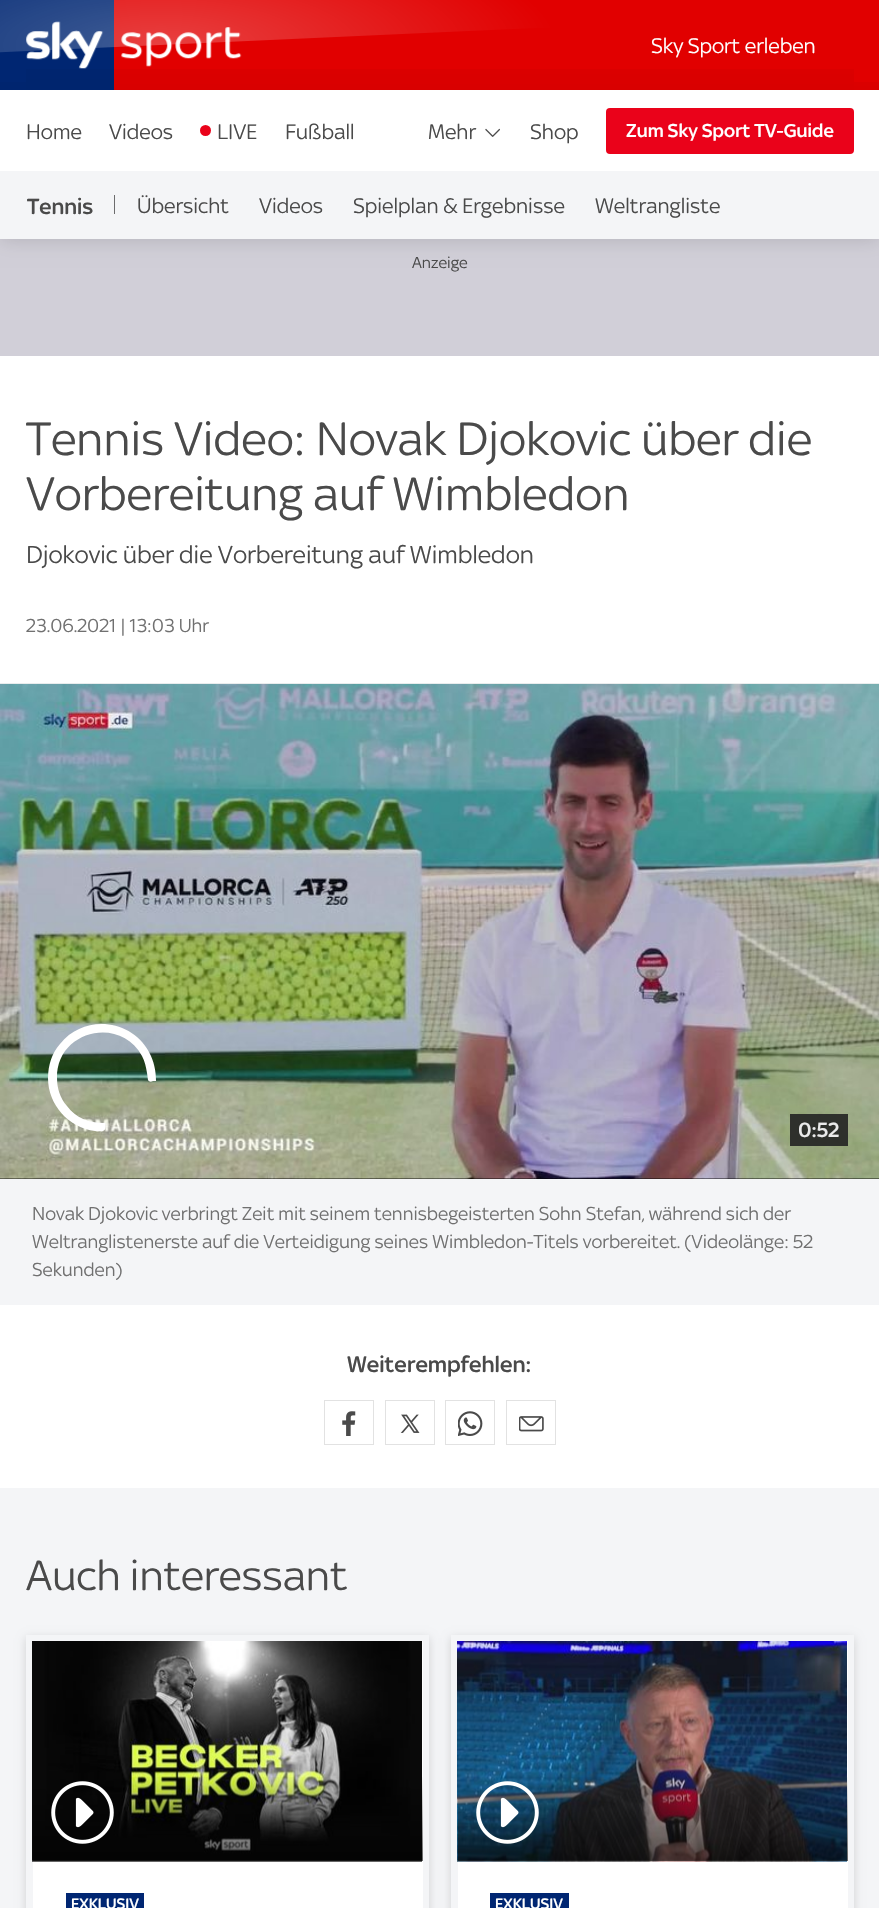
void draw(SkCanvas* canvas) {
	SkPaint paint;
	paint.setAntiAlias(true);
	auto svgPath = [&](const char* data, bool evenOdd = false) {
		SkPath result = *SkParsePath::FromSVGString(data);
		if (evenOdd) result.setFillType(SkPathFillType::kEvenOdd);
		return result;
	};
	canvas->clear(0xffffffff);
	paint.setColor(0xffd1cfd8);
	canvas->drawRect(SkRect::MakeXYWH(0, 239, 879, 117), paint);
	paint.setColor(0x24000000);
	paint.setMaskFilter(SkMaskFilter::MakeBlur(kNormal_SkBlurStyle, 9.5));
	canvas->drawRect(SkRect::MakeXYWH(0, 1, 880, 239), paint);
	paint.setMaskFilter(nullptr);
	paint.setColor(0xff002672);
	canvas->drawRect(SkRect::MakeXYWH(0, 0, 26, 90), paint);
	paint.setColor(0xffe10000);
	canvas->drawRect(SkRect::MakeXYWH(854, 0, 25, 90), paint);
	{
		const SkColor colors[] = {0x1a000000, 0x00000000};
		const float stops[] = {0, 0.66};
		const SkPoint ends[] = {{440, 171}, {440, 0}};
		paint.setShader(SkGradientShader::MakeLinear(ends, colors, stops, 2, SkTileMode::kClamp));
		paint.setAlpha(255);
	}
	canvas->drawRect(SkRect::MakeXYWH(0, 82, 879, 8), paint);
	paint.setShader(nullptr);
	paint.setColor(0xff002672);
	canvas->drawRect(SkRect::MakeXYWH(26, 0, 88, 90), paint);
	paint.setColor(0xffe10000);
	canvas->drawRect(SkRect::MakeXYWH(114, 0, 740, 90), paint);
	{
		const SkColor colors[] = {0x1a000000, 0x00000000};
		const float stops[] = {0, 0.76};
		const SkPoint ends[] = {{440, 172}, {440, 0}};
		paint.setShader(SkGradientShader::MakeLinear(ends, colors, stops, 2, SkTileMode::kClamp));
		paint.setAlpha(255);
	}
	canvas->drawRect(SkRect::MakeXYWH(26, 69, 828, 21), paint);
	canvas->drawImageRect(SkImages::DeferredFromEncodedData(SkData::MakeFromFileName("img1.png")), SkRect::MakeXYWH(26, 21, 216, 48), SkSamplingOptions());
	{
		const SkColor colors[] = {0x40ffffff, 0x00ffffff};
		const float stops[] = {0, 1};
		SkMatrix m = SkMatrix::Translate(161, 45).preScale(396, 125);
		paint.setShader(SkGradientShader::MakeRadial({0, 0}, 1, colors, stops, 2, SkTileMode::kClamp, 0, &m));
		paint.setAlpha(255);
	}
	canvas->drawPath(svgPath("M-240-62L551-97L556 27L-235 63Z"), paint);
	SkFont f1(fontMgr->matchFamilyStyle("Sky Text", SkFontStyle::Normal()), 22.5);
	f1.setSubpixel(true);
	paint.setShader(nullptr);
	paint.setColor(0xffffffff);
	canvas->drawString("Sky Sport erleben", 651, 53, f1, paint);
	canvas->drawRect(SkRect::MakeXYWH(0, 90, 879, 81), paint);
	paint.setColor(0xff4a4a4a);
	canvas->drawString("Home", 26, 139, f1, paint);
	canvas->drawString("Videos", 109, 139, f1, paint);
	paint.setColor(0xffea021a);
	canvas->drawCircle(205.5, 130.5, 5.5, paint);
	paint.setColor(0xff4a4a4a);
	canvas->drawString("LIVE", 217, 139, f1, paint);
	canvas->drawString("Fußball", 285, 139, f1, paint);
	canvas->drawString("Mehr", 428, 139, f1, paint);
	canvas->drawImageRect(SkImages::DeferredFromEncodedData(SkData::MakeFromFileName("img2.png")), SkRect::MakeXYWH(485, 128, 15, 9), SkSamplingOptions());
	canvas->drawString("Shop", 530, 139, f1, paint);
	paint.setColor(0xffea021a);
	canvas->drawRoundRect(SkRect::MakeXYWH(606, 108, 248, 46), 4, 4, paint);
	SkFont f2(fontMgr->matchFamilyStyle("Sky Text", SkFontStyle(500, SkFontStyle::kNormal_Width, SkFontStyle::kUpright_Slant)), 20);
	f2.setSubpixel(true);
	paint.setColor(0xffffffff);
	canvas->drawString("Zum Sky Sport TV-Guide", 626, 137, f2, paint);
	paint.setColor(0xfff4f5f7);
	canvas->drawRect(SkRect::MakeXYWH(0, 171, 879, 68), paint);
	SkFont f3(fontMgr->matchFamilyStyle("Sky Text", SkFontStyle(500, SkFontStyle::kNormal_Width, SkFontStyle::kUpright_Slant)), 23.5);
	f3.setSubpixel(true);
	paint.setColor(0xff4a4a4a);
	canvas->drawString("Tennis", 27, 214, f3, paint);
	paint.setColor(0xff6c6c6d);
	canvas->drawRect(SkRect::MakeXYWH(114, 195, 1, 19), paint);
	paint.setColor(0xff4a4a4a);
	canvas->drawString("Übersicht", 137, 213, f1, paint);
	canvas->drawString("Videos", 259, 213, f1, paint);
	canvas->drawString("Spielplan & Ergebnisse", 353, 213, f1, paint);
	canvas->drawString("Weltrangliste", 595, 213, f1, paint);
	SkFont f4(fontMgr->matchFamilyStyle("Sky Text", SkFontStyle::Normal()), 17);
	f4.setSubpixel(true);
	canvas->drawString("Anzeige", 412, 268, f4, paint);
	SkFont f5(fontMgr->matchFamilyStyle("Sky Text", SkFontStyle::Normal()), 50.1);
	f5.setSubpixel(true);
	canvas->drawString("Tennis Video: Novak Djokovic über die", 26, 455, f5, paint);
	canvas->drawString("Vorbereitung auf Wimbledon", 26, 510, f5, paint);
	SkFont f6(fontMgr->matchFamilyStyle("Sky Text", SkFontStyle::Normal()), 26.25);
	f6.setSubpixel(true);
	canvas->drawString("Djokovic über die Vorbereitung auf Wimbledon", 26, 563, f6, paint);
	SkFont f7(fontMgr->matchFamilyStyle("Sky Text", SkFontStyle::Normal()), 20);
	f7.setSubpixel(true);
	paint.setColor(0xff707070);
	canvas->drawString("23.06.2021 | 13:03 Uhr", 26, 632, f7, paint);
	canvas->drawImageRect(SkImages::DeferredFromEncodedData(SkData::MakeFromFileName("img3.png")), SkRect::MakeXYWH(0, 683, 879, 1), SkSamplingOptions());
	paint.setColor(0xff000000);
	canvas->drawRect(SkRect::MakeXYWH(0, 1178, 879, 1), paint);
	canvas->drawImageRect(SkImages::DeferredFromEncodedData(SkData::MakeFromFileName("img4.png")), SkRect::MakeXYWH(0, 683, 879, 496), SkSamplingOptions());
	paint.setColor(0xffffffff);
	canvas->drawPath(svgPath("M153 1081C151 1082 149 1082 148 1080L147 1073C146 1067 145 1062 142 1056C120 1015 56 1031 57 1078C57 1088 60 1098 67 1106C76 1118 89 1123 104 1123H105C107 1131 104 1132 95 1131C69 1128 48 1105 48 1078C48 1065 52 1053 60 1044C84 1014 131 1019 149 1052C154 1061 156 1071 156 1081Z"), paint);
	paint.setColor(0xe6222222);
	canvas->drawRect(SkRect::MakeXYWH(790, 1114, 58, 32), paint);
	SkFont f8(fontMgr->matchFamilyStyle("Sky Text", SkFontStyle(500, SkFontStyle::kNormal_Width, SkFontStyle::kUpright_Slant)), 22);
	f8.setSubpixel(true);
	paint.setColor(0xffeaeaea);
	canvas->drawString("0:52", 798, 1137, f8, paint);
	paint.setColor(0xfff4f5f7);
	canvas->drawRect(SkRect::MakeXYWH(0, 1179, 879, 126), paint);
	paint.setColor(0xff707070);
	canvas->drawString("Novak Djokovic verbringt Zeit mit seinem tennisbegeisterten Sohn Stefan, während sich der", 32, 1220, f7, paint);
	canvas->drawString("Weltranglistenerste auf die Verteidigung seines Wimbledon-Titels vorbereitet. (Videolänge: 52", 32, 1248, f7, paint);
	canvas->drawString("Sekunden)", 32, 1276, f7, paint);
	SkFont f9(fontMgr->matchFamilyStyle("Sky Text", SkFontStyle(500, SkFontStyle::kNormal_Width, SkFontStyle::kUpright_Slant)), 24);
	f9.setSubpixel(true);
	paint.setColor(0xff4a4a4a);
	canvas->drawString("Weiterempfehlen:", 347, 1372, f9, paint);
	paint.setStroke(true);
	paint.setStrokeWidth(1);
	paint.setColor(0xffe2e2e2);
	canvas->drawRect(SkRect::MakeXYWH(324.5, 1400.5, 49, 44), paint);
	canvas->drawImageRect(SkImages::DeferredFromEncodedData(SkData::MakeFromFileName("img5.png")), SkRect::MakeXYWH(342, 1411, 14, 25), SkSamplingOptions());
	canvas->drawRect(SkRect::MakeXYWH(385.5, 1400.5, 49, 44), paint);
	canvas->drawImageRect(SkImages::DeferredFromEncodedData(SkData::MakeFromFileName("img6.png")), SkRect::MakeXYWH(400, 1414, 20, 19), SkSamplingOptions());
	canvas->drawRect(SkRect::MakeXYWH(445.5, 1400.5, 49, 44), paint);
	canvas->drawImageRect(SkImages::DeferredFromEncodedData(SkData::MakeFromFileName("img7.png")), SkRect::MakeXYWH(458, 1411, 25, 25), SkSamplingOptions());
	canvas->drawRect(SkRect::MakeXYWH(506.5, 1400.5, 49, 44), paint);
	canvas->drawImageRect(SkImages::DeferredFromEncodedData(SkData::MakeFromFileName("img8.png")), SkRect::MakeXYWH(519, 1416, 25, 16), SkSamplingOptions());
	paint.setStroke(false);
	paint.setColor(0xfff4f5f7);
	canvas->drawRect(SkRect::MakeXYWH(0, 1488, 879, 420), paint);
	SkFont f10(fontMgr->matchFamilyStyle("Sky Text", SkFontStyle::Normal()), 45);
	f10.setSubpixel(true);
	paint.setColor(0xff4a4a4a);
	canvas->drawString("Auch interessant", 26, 1590, f10, paint);
	paint.setColor(0xffffffff);
	canvas->drawRect(SkRect::MakeXYWH(33, 1641, 390, 267), paint);
	canvas->save();
	canvas->clipPath(svgPath("M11 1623H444V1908H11ZM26 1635H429V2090H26Z", true), true);
	paint.setColor(0x26000000);
	paint.setMaskFilter(SkMaskFilter::MakeBlur(kNormal_SkBlurStyle, 4.5));
	canvas->drawRect(SkRect::MakeXYWH(26, 1638, 403, 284), paint);
	paint.setMaskFilter(nullptr);
	canvas->restore();
	canvas->drawImageRect(SkImages::DeferredFromEncodedData(SkData::MakeFromFileName("img9.png")), SkRect::MakeXYWH(32, 1641, 390, 221), SkSamplingOptions());
	{
		const SkColor colors[] = {0x99000000, 0x00000000};
		const float stops[] = {0.05, 1};
		const SkPoint ends[] = {{228, 1863}, {228, 1774}};
		paint.setShader(SkGradientShader::MakeLinear(ends, colors, stops, 2, SkTileMode::kClamp));
		paint.setAlpha(255);
	}
	canvas->drawRect(SkRect::MakeXYWH(33, 1777, 390, 84), paint);
	canvas->drawImageRect(SkImages::DeferredFromEncodedData(SkData::MakeFromFileName("img10.png")), SkRect::MakeXYWH(51, 1781, 63, 63), SkSamplingOptions());
	paint.setShader(nullptr);
	paint.setColor(0xff002672);
	canvas->drawRect(SkRect::MakeXYWH(66, 1893, 78, 15), paint);
	SkFont f11(fontMgr->matchFamilyStyle("Sky Text", SkFontStyle(500, SkFontStyle::kNormal_Width, SkFontStyle::kUpright_Slant)), 16.25);
	f11.setSubpixel(true);
	paint.setColor(0xffffffff);
	canvas->drawString("EXKLUSIV", 71, 1909, f11, paint);
	canvas->drawRect(SkRect::MakeXYWH(458, 1641, 390, 267), paint);
	canvas->save();
	canvas->clipPath(svgPath("M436 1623H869V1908H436ZM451 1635H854V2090H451Z", true), true);
	paint.setColor(0x26000000);
	paint.setMaskFilter(SkMaskFilter::MakeBlur(kNormal_SkBlurStyle, 4.5));
	canvas->drawRect(SkRect::MakeXYWH(451, 1638, 403, 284), paint);
	paint.setMaskFilter(nullptr);
	canvas->restore();
	canvas->drawImageRect(SkImages::DeferredFromEncodedData(SkData::MakeFromFileName("img11.png")), SkRect::MakeXYWH(457, 1641, 390, 221), SkSamplingOptions());
	{
		const SkColor colors[] = {0x99000000, 0x00000000};
		const float stops[] = {0.05, 1};
		const SkPoint ends[] = {{653, 1863}, {653, 1774}};
		paint.setShader(SkGradientShader::MakeLinear(ends, colors, stops, 2, SkTileMode::kClamp));
		paint.setAlpha(255);
	}
	canvas->drawRect(SkRect::MakeXYWH(458, 1777, 390, 84), paint);
	canvas->drawImageRect(SkImages::DeferredFromEncodedData(SkData::MakeFromFileName("img12.png")), SkRect::MakeXYWH(476, 1781, 63, 63), SkSamplingOptions());
	paint.setShader(nullptr);
	paint.setColor(0xff002672);
	canvas->drawRect(SkRect::MakeXYWH(490, 1893, 79, 15), paint);
	paint.setColor(0xffffffff);
	canvas->drawString("EXKLUSIV", 495, 1909, f11, paint);
}
